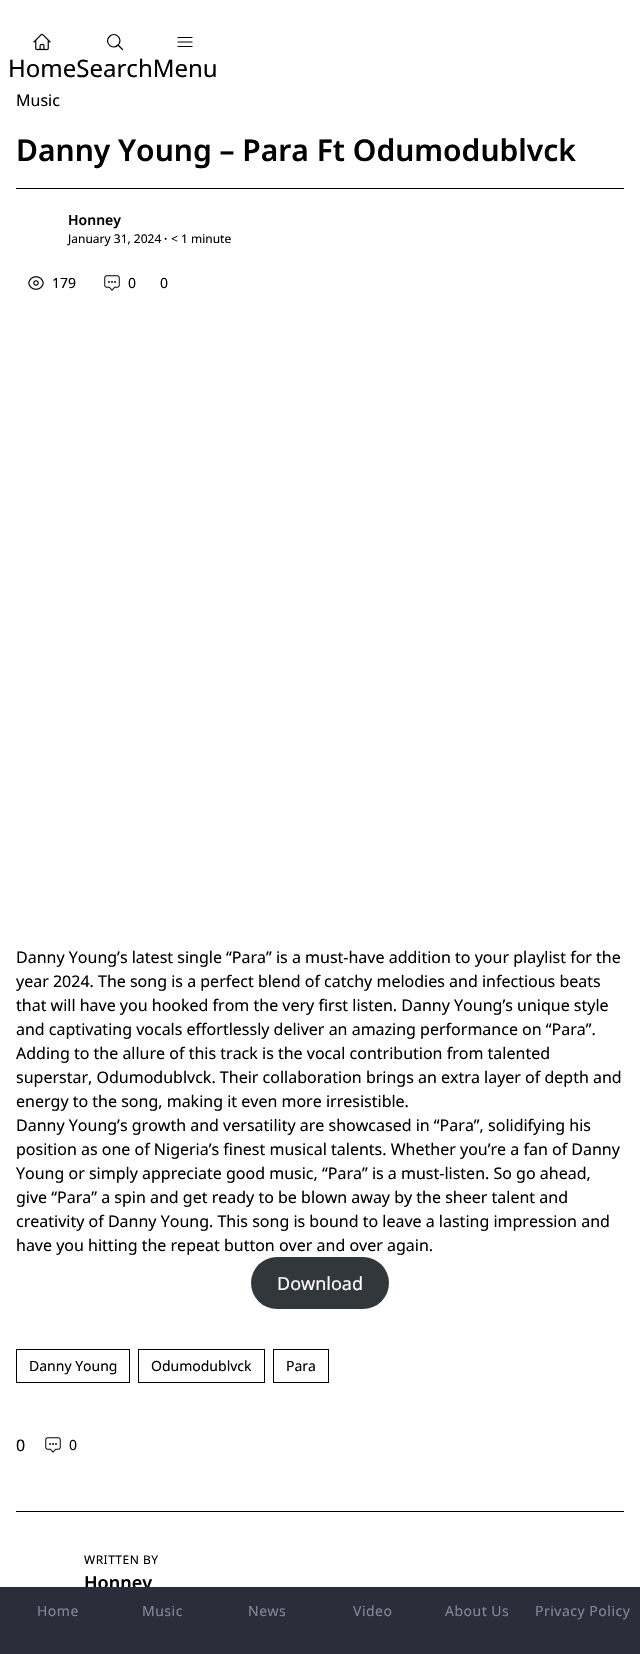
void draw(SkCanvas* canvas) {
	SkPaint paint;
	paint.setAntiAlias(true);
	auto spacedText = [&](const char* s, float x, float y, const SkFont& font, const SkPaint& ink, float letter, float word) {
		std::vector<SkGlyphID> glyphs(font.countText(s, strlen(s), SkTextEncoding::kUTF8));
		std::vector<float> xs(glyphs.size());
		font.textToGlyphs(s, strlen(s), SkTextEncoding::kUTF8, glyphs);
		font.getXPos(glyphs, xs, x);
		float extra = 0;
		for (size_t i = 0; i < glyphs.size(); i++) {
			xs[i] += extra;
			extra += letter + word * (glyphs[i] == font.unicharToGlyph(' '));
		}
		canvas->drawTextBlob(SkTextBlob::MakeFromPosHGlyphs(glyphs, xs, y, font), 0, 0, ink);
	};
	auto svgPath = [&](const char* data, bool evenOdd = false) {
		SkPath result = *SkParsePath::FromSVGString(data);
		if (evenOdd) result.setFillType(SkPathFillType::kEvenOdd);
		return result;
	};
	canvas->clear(0xffffffff);
	paint.setStroke(true);
	paint.setStrokeWidth(1.2);
	paint.setStrokeCap(SkPaint::kRound_Cap);
	paint.setStrokeJoin(SkPaint::kRound_Join);
	paint.setColor(0xff000000);
	canvas->drawPath(svgPath("M122.5 49.5L118 45M118 45C124 39.5 115 30.5 109.5 36.5C103.5 42 112.5 51 118 45Z"), paint);
	canvas->drawPath(svgPath("M178 37.5H192M178 42H192M178 46.5H192"), paint);
	canvas->drawImageRect(SkImages::DeferredFromEncodedData(SkData::MakeFromFileName("img1.png")), SkRect::MakeXYWH(33, 33, 18, 18), SkSamplingOptions());
	SkFont f1(fontMgr->matchFamilyStyle("Noto Sans", SkFontStyle::Normal()), 24);
	f1.setSubpixel(true);
	paint.setStroke(false);
	canvas->drawString("HomeSearchMenu", 8, 77, f1, paint);
	SkFont f2(fontMgr->matchFamilyStyle("Noto Sans", SkFontStyle::Normal()), 16);
	f2.setSubpixel(true);
	canvas->drawString("Music", 16, 106, f2, paint);
	SkFont f3(fontMgr->matchFamilyStyle("Noto Sans", SkFontStyle(600, SkFontStyle::kNormal_Width, SkFontStyle::kUpright_Slant)), 30);
	f3.setSubpixel(true);
	canvas->drawString("Danny Young – Para Ft Odumodublvck", 16, 161, f3, paint);
	canvas->drawRect(SkRect::MakeXYWH(16, 188, 608, 1), paint);
	SkFont f4(fontMgr->matchFamilyStyle("Noto Sans", SkFontStyle(600, SkFontStyle::kNormal_Width, SkFontStyle::kUpright_Slant)), 14);
	f4.setSubpixel(true);
	canvas->drawString("Honney", 68, 225, f4, paint);
	SkFont f5(fontMgr->matchFamilyStyle("Noto Sans", SkFontStyle::Normal()), 12);
	f5.setSubpixel(true);
	canvas->drawString("January 31, 2024", 68, 243, f5, paint);
	SkFont f6(fontMgr->matchFamilyStyle("Noto Sans", SkFontStyle(600, SkFontStyle::kNormal_Width, SkFontStyle::kUpright_Slant)), 12);
	f6.setSubpixel(true);
	canvas->drawString("·", 164, 243, f6, paint);
	canvas->drawString("< 1 minute", 171, 243, f5, paint);
	canvas->drawImageRect(SkImages::DeferredFromEncodedData(SkData::MakeFromFileName("img2.png")), SkRect::MakeXYWH(28, 276, 16, 14), SkSamplingOptions());
	SkFont f7(fontMgr->matchFamilyStyle("Noto Sans", SkFontStyle::Normal()), 14);
	f7.setSubpixel(true);
	canvas->drawString("179", 52, 288, f7, paint);
	canvas->drawImageRect(SkImages::DeferredFromEncodedData(SkData::MakeFromFileName("img3.png")), SkRect::MakeXYWH(104, 275, 16, 16), SkSamplingOptions());
	canvas->drawString("0", 128, 288, f7, paint);
	canvas->drawString("0", 160, 288, f7, paint);
	canvas->drawString("Danny Young’s latest single “Para” is a must-have addition to your playlist for the", 16, 963, f2, paint);
	canvas->drawString("year 2024. The song is a perfect blend of catchy melodies and infectious beats", 16, 987, f2, paint);
	canvas->drawString("that will have you hooked from the very first listen. Danny Young’s unique style", 16, 1011, f2, paint);
	canvas->drawString("and captivating vocals effortlessly deliver an amazing performance on “Para”.", 16, 1035, f2, paint);
	canvas->drawString("Adding to the allure of this track is the vocal contribution from talented", 16, 1059, f2, paint);
	canvas->drawString("superstar, Odumodublvck. Their collaboration brings an extra layer of depth and", 16, 1083, f2, paint);
	canvas->drawString("energy to the song, making it even more irresistible.", 16, 1107, f2, paint);
	canvas->drawString("Danny Young’s growth and versatility are showcased in “Para”, solidifying his", 16, 1131, f2, paint);
	canvas->drawString("position as one of Nigeria’s finest musical talents. Whether you’re a fan of Danny", 16, 1155, f2, paint);
	canvas->drawString("Young or simply appreciate good music, “Para” is a must-listen. So go ahead,", 16, 1179, f2, paint);
	canvas->drawString("give “Para” a spin and get ready to be blown away by the sheer talent and", 16, 1203, f2, paint);
	canvas->drawString("creativity of Danny Young. This song is bound to leave a lasting impression and", 16, 1227, f2, paint);
	canvas->drawString("have you hitting the repeat button over and over again.", 16, 1251, f2, paint);
	paint.setColor(0xff32373c);
	canvas->drawRoundRect(SkRect::MakeXYWH(251, 1257, 138, 52), 26, 26, paint);
	SkFont f8(fontMgr->matchFamilyStyle("Noto Sans", SkFontStyle::Normal()), 18);
	f8.setSubpixel(true);
	paint.setColor(0xffffffff);
	canvas->drawString("Download", 277, 1290, f8, paint);
	paint.setColor(0xff000000);
	canvas->drawRect(SkRect::MakeXYWH(16, 1511, 608, 1), paint);
	paint.setStroke(true);
	paint.setStrokeWidth(1);
	paint.setStrokeCap(SkPaint::kButt_Cap);
	paint.setStrokeJoin(SkPaint::kMiter_Join);
	canvas->drawRect(SkRect::MakeXYWH(16.5, 1349.5, 113, 33), paint);
	paint.setStroke(false);
	canvas->drawString("Danny Young", 29, 1371, f7, paint);
	paint.setStroke(true);
	canvas->drawRect(SkRect::MakeXYWH(138.5, 1349.5, 126, 33), paint);
	paint.setStroke(false);
	canvas->drawString("Odumodublvck", 151, 1371, f7, paint);
	paint.setStroke(true);
	canvas->drawRect(SkRect::MakeXYWH(273.5, 1349.5, 55, 33), paint);
	paint.setStroke(false);
	canvas->drawString("Para", 286, 1371, f7, paint);
	canvas->drawString("0", 16, 1451, f2, paint);
	canvas->drawImageRect(SkImages::DeferredFromEncodedData(SkData::MakeFromFileName("img3.png")), SkRect::MakeXYWH(45, 1437, 16, 16), SkSamplingOptions());
	canvas->drawString("0", 69, 1450, f7, paint);
	spacedText("WRITTEN BY", 84, 1564, f5, paint, 0.5, 0);
	SkFont f9(fontMgr->matchFamilyStyle("Noto Sans", SkFontStyle(600, SkFontStyle::kNormal_Width, SkFontStyle::kUpright_Slant)), 18);
	f9.setSubpixel(true);
	canvas->drawString("Honney", 84, 1589, f9, paint);
	paint.setColor(0xff2c2c3a);
	canvas->drawRect(SkRect::MakeXYWH(0, 1587, 640, 67), paint);
	paint.setColor(0xff818797);
	spacedText("Home", 37, 1616, f7, paint, 0.5, 0);
	spacedText("Music", 142, 1616, f7, paint, 0.5, 0);
	spacedText("News", 248, 1616, f7, paint, 0.5, 0);
	spacedText("Video", 353, 1616, f7, paint, 0.5, 0);
	spacedText("About Us", 445, 1616, f7, paint, 0.5, 0);
	spacedText("Privacy Policy", 535, 1616, f7, paint, 0.5, 0);
}
